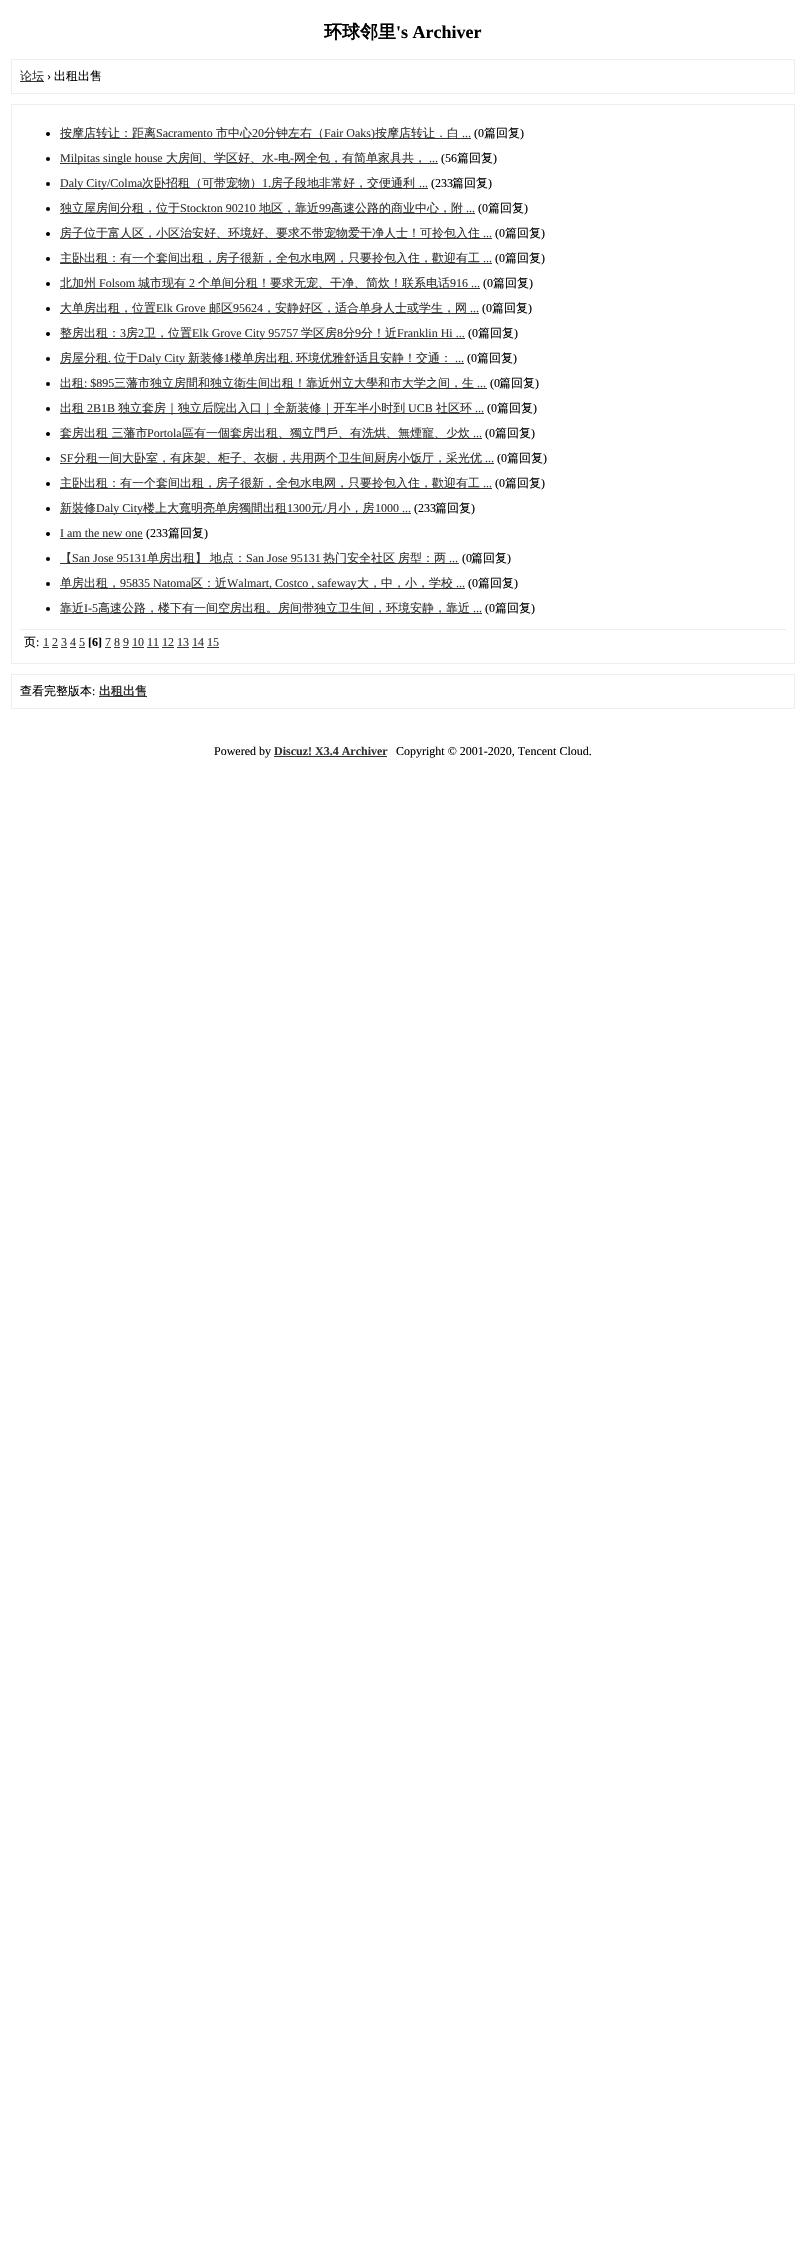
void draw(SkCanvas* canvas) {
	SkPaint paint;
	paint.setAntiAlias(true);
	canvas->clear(0xffffffff);
	SkFont f1(fontMgr->matchFamilyStyle("WenQuanYi Zen Hei", SkFontStyle::Bold()), 18);
	f1.setSubpixel(true);
	paint.setColor(0xff000000);
	canvas->drawString("环球邻里", 324, 38, f1, paint);
	SkFont f2(fontMgr->matchFamilyStyle("Liberation Serif", SkFontStyle::Bold()), 18);
	f2.setSubpixel(true);
	canvas->drawString("'s Archiver", 396, 38, f2, paint);
	paint.setStroke(true);
	paint.setStrokeWidth(1);
	paint.setColor(0xffeeeeee);
	canvas->drawRect(SkRect::MakeXYWH(11.5, 59.5, 783, 34), paint);
	paint.setStroke(false);
	paint.setColor(0xff333333);
	canvas->drawRect(SkRect::MakeXYWH(20, 81, 24, 1), paint);
	SkFont f3(fontMgr->matchFamilyStyle("WenQuanYi Zen Hei", SkFontStyle(500, SkFontStyle::kNormal_Width, SkFontStyle::kUpright_Slant)), 12);
	f3.setSubpixel(true);
	canvas->drawString("论坛", 20, 80, f3, paint);
	SkFont f4(fontMgr->matchFamilyStyle("Liberation Serif", SkFontStyle::Normal()), 12);
	f4.setSubpixel(true);
	paint.setColor(0xff000000);
	canvas->drawString("›", 47, 80, f4, paint);
	canvas->drawString("出租出售", 54, 80, f3, paint);
	paint.setStroke(true);
	paint.setColor(0xffeeeeee);
	canvas->drawRect(SkRect::MakeXYWH(11.5, 104.5, 783, 559), paint);
	paint.setStroke(false);
	paint.setColor(0xff000000);
	canvas->drawCircle(48, 134, 2, paint);
	paint.setColor(0xff333333);
	canvas->drawRect(SkRect::MakeXYWH(60, 138, 411, 1), paint);
	canvas->drawString("按摩店转让：距离", 60, 137, f3, paint);
	canvas->drawString("Sacramento", 156, 137, f4, paint);
	canvas->drawString("市中心", 216, 137, f3, paint);
	canvas->drawString("20", 252, 137, f4, paint);
	canvas->drawString("分钟左右（", 264, 137, f3, paint);
	canvas->drawString("Fair Oaks)", 324, 137, f4, paint);
	canvas->drawString("按摩店转让．白", 375, 137, f3, paint);
	paint.setColor(0xff000000);
	canvas->drawString("(0", 474, 137, f4, paint);
	canvas->drawString("篇回复", 484, 137, f3, paint);
	canvas->drawString(")", 520, 137, f4, paint);
	paint.setColor(0xff333333);
	canvas->drawString("...", 462, 137, f4, paint);
	paint.setColor(0xff000000);
	canvas->drawCircle(48, 159, 2, paint);
	paint.setColor(0xff333333);
	canvas->drawRect(SkRect::MakeXYWH(60, 163, 378, 1), paint);
	canvas->drawString("Milpitas single house", 60, 162, f4, paint);
	canvas->drawString("大房间、学区好、水", 166, 162, f3, paint);
	canvas->drawString("-", 274, 162, f4, paint);
	canvas->drawString("电", 278, 162, f3, paint);
	canvas->drawString("-", 290, 162, f4, paint);
	canvas->drawString("网全包，有简单家具共，", 294, 162, f3, paint);
	paint.setColor(0xff000000);
	canvas->drawString("(56", 441, 162, f4, paint);
	canvas->drawString("篇回复", 457, 162, f3, paint);
	canvas->drawString(")", 493, 162, f4, paint);
	paint.setColor(0xff333333);
	canvas->drawString("...", 429, 162, f4, paint);
	paint.setColor(0xff000000);
	canvas->drawCircle(48, 184, 2, paint);
	paint.setColor(0xff333333);
	canvas->drawRect(SkRect::MakeXYWH(60, 188, 368, 1), paint);
	canvas->drawString("Daly City/Colma", 60, 187, f4, paint);
	canvas->drawString("次卧招租（可带宠物）", 142, 187, f3, paint);
	canvas->drawString("1.", 262, 187, f4, paint);
	canvas->drawString("房子段地非常好，交便通利", 271, 187, f3, paint);
	paint.setColor(0xff000000);
	canvas->drawString("(233", 431, 187, f4, paint);
	canvas->drawString("篇回复", 452, 187, f3, paint);
	canvas->drawString(")", 488, 187, f4, paint);
	paint.setColor(0xff333333);
	canvas->drawString("...", 419, 187, f4, paint);
	paint.setColor(0xff000000);
	canvas->drawCircle(48, 209, 2, paint);
	paint.setColor(0xff333333);
	canvas->drawRect(SkRect::MakeXYWH(60, 213, 415, 1), paint);
	canvas->drawString("独立屋房间分租，位于", 60, 212, f3, paint);
	canvas->drawString("Stockton 90210", 180, 212, f4, paint);
	canvas->drawString("地区，靠近", 259, 212, f3, paint);
	canvas->drawString("99", 319, 212, f4, paint);
	canvas->drawString("高速公路的商业中心，附", 331, 212, f3, paint);
	paint.setColor(0xff000000);
	canvas->drawString("(0", 478, 212, f4, paint);
	canvas->drawString("篇回复", 488, 212, f3, paint);
	canvas->drawString(")", 524, 212, f4, paint);
	paint.setColor(0xff333333);
	canvas->drawString("...", 466, 212, f4, paint);
	paint.setColor(0xff000000);
	canvas->drawCircle(48, 234, 2, paint);
	paint.setColor(0xff333333);
	canvas->drawRect(SkRect::MakeXYWH(60, 238, 432, 1), paint);
	canvas->drawString("房子位于富人区，小区治安好、环境好、要求不带宠物爱干净人士！可拎包入住", 60, 237, f3, paint);
	paint.setColor(0xff000000);
	canvas->drawString("(0", 495, 237, f4, paint);
	canvas->drawString("篇回复", 505, 237, f3, paint);
	canvas->drawString(")", 541, 237, f4, paint);
	paint.setColor(0xff333333);
	canvas->drawString("...", 483, 237, f4, paint);
	paint.setColor(0xff000000);
	canvas->drawCircle(48, 259, 2, paint);
	paint.setColor(0xff333333);
	canvas->drawRect(SkRect::MakeXYWH(60, 263, 432, 1), paint);
	canvas->drawString("主卧出租：有一个套间出租，房子很新，全包水电网，只要拎包入住，歡迎有工", 60, 262, f3, paint);
	paint.setColor(0xff000000);
	canvas->drawString("(0", 495, 262, f4, paint);
	canvas->drawString("篇回复", 505, 262, f3, paint);
	canvas->drawString(")", 541, 262, f4, paint);
	paint.setColor(0xff333333);
	canvas->drawString("...", 483, 262, f4, paint);
	paint.setColor(0xff000000);
	canvas->drawCircle(48, 284, 2, paint);
	paint.setColor(0xff333333);
	canvas->drawRect(SkRect::MakeXYWH(60, 288, 420, 1), paint);
	canvas->drawString("北加州", 60, 287, f3, paint);
	canvas->drawString("Folsom", 99, 287, f4, paint);
	canvas->drawString("城市现有", 138, 287, f3, paint);
	canvas->drawString("2", 189, 287, f4, paint);
	canvas->drawString("个单间分租！要求无宠、干净、简炊！联系电话", 198, 287, f3, paint);
	canvas->drawString("916 ...", 450, 287, f4, paint);
	paint.setColor(0xff000000);
	canvas->drawString("(0", 483, 287, f4, paint);
	canvas->drawString("篇回复", 493, 287, f3, paint);
	canvas->drawString(")", 529, 287, f4, paint);
	canvas->drawCircle(48, 309, 2, paint);
	paint.setColor(0xff333333);
	canvas->drawRect(SkRect::MakeXYWH(60, 313, 419, 1), paint);
	canvas->drawString("大单房出租，位置", 60, 312, f3, paint);
	canvas->drawString("Elk Grove", 156, 312, f4, paint);
	canvas->drawString("邮区", 209, 312, f3, paint);
	canvas->drawString("95624", 233, 312, f4, paint);
	canvas->drawString("，安静好区，适合单身人士或学生，网", 263, 312, f3, paint);
	paint.setColor(0xff000000);
	canvas->drawString("(0", 482, 312, f4, paint);
	canvas->drawString("篇回复", 492, 312, f3, paint);
	canvas->drawString(")", 528, 312, f4, paint);
	paint.setColor(0xff333333);
	canvas->drawString("...", 470, 312, f4, paint);
	paint.setColor(0xff000000);
	canvas->drawCircle(48, 334, 2, paint);
	paint.setColor(0xff333333);
	canvas->drawRect(SkRect::MakeXYWH(60, 338, 405, 1), paint);
	canvas->drawString("整房出租：", 60, 337, f3, paint);
	canvas->drawString("3", 120, 337, f4, paint);
	canvas->drawString("房", 126, 337, f3, paint);
	canvas->drawString("2", 138, 337, f4, paint);
	canvas->drawString("卫，位置", 144, 337, f3, paint);
	canvas->drawString("Elk Grove City 95757", 192, 337, f4, paint);
	canvas->drawString("学区房", 301, 337, f3, paint);
	canvas->drawString("8", 337, 337, f4, paint);
	canvas->drawString("分", 343, 337, f3, paint);
	canvas->drawString("9", 355, 337, f4, paint);
	canvas->drawString("分！近", 361, 337, f3, paint);
	canvas->drawString("Franklin Hi ...", 397, 337, f4, paint);
	paint.setColor(0xff000000);
	canvas->drawString("(0", 468, 337, f4, paint);
	canvas->drawString("篇回复", 478, 337, f3, paint);
	canvas->drawString(")", 514, 337, f4, paint);
	canvas->drawCircle(48, 359, 2, paint);
	paint.setColor(0xff333333);
	canvas->drawRect(SkRect::MakeXYWH(60, 363, 404, 1), paint);
	canvas->drawString("房屋分租", 60, 362, f3, paint);
	canvas->drawString("位于", 114, 362, f3, paint);
	canvas->drawString("Daly City", 138, 362, f4, paint);
	canvas->drawString("新装修", 188, 362, f3, paint);
	canvas->drawString("1", 224, 362, f4, paint);
	canvas->drawString("楼单房出租", 230, 362, f3, paint);
	canvas->drawString("环境优雅舒适且安静！交通：", 296, 362, f3, paint);
	paint.setColor(0xff000000);
	canvas->drawString("(0", 467, 362, f4, paint);
	canvas->drawString("篇回复", 477, 362, f3, paint);
	canvas->drawString(")", 513, 362, f4, paint);
	paint.setColor(0xff333333);
	canvas->drawString(".", 108, 362, f4, paint);
	canvas->drawString(".", 290, 362, f4, paint);
	canvas->drawString("...", 455, 362, f4, paint);
	paint.setColor(0xff000000);
	canvas->drawCircle(48, 384, 2, paint);
	paint.setColor(0xff333333);
	canvas->drawRect(SkRect::MakeXYWH(60, 388, 427, 1), paint);
	canvas->drawString("出租", 60, 387, f3, paint);
	canvas->drawString(": $895", 84, 387, f4, paint);
	canvas->drawString("三藩市独立房間和独立衛生间出租！靠近州立大學和市大学之间，生", 114, 387, f3, paint);
	paint.setColor(0xff000000);
	canvas->drawString("(0", 490, 387, f4, paint);
	canvas->drawString("篇回复", 499, 387, f3, paint);
	canvas->drawString(")", 535, 387, f4, paint);
	paint.setColor(0xff333333);
	canvas->drawString("...", 477, 387, f4, paint);
	paint.setColor(0xff000000);
	canvas->drawCircle(48, 409, 2, paint);
	paint.setColor(0xff333333);
	canvas->drawRect(SkRect::MakeXYWH(60, 413, 424, 1), paint);
	canvas->drawString("出租", 60, 412, f3, paint);
	canvas->drawString("2B1B", 87, 412, f4, paint);
	canvas->drawString("独立套房｜独立后院出入口｜全新装修｜开车半小时到", 118, 412, f3, paint);
	canvas->drawString("UCB", 408, 412, f4, paint);
	canvas->drawString("社区环", 436, 412, f3, paint);
	paint.setColor(0xff000000);
	canvas->drawString("(0", 487, 412, f4, paint);
	canvas->drawString("篇回复", 497, 412, f3, paint);
	canvas->drawString(")", 533, 412, f4, paint);
	paint.setColor(0xff333333);
	canvas->drawString("...", 475, 412, f4, paint);
	paint.setColor(0xff000000);
	canvas->drawCircle(48, 434, 2, paint);
	paint.setColor(0xff333333);
	canvas->drawRect(SkRect::MakeXYWH(60, 438, 422, 1), paint);
	canvas->drawString("套房出租 三藩市", 60, 437, f3, paint);
	canvas->drawString("Portola", 147, 437, f4, paint);
	canvas->drawString("區有一個套房出租、獨立門戶、有洗烘、無煙寵、少炊", 182, 437, f3, paint);
	paint.setColor(0xff000000);
	canvas->drawString("(0", 485, 437, f4, paint);
	canvas->drawString("篇回复", 495, 437, f3, paint);
	canvas->drawString(")", 531, 437, f4, paint);
	paint.setColor(0xff333333);
	canvas->drawString("...", 473, 437, f4, paint);
	paint.setColor(0xff000000);
	canvas->drawCircle(48, 459, 2, paint);
	paint.setColor(0xff333333);
	canvas->drawString("SF", 60, 462, f4, paint);
	canvas->drawRect(SkRect::MakeXYWH(60, 463, 434, 1), paint);
	canvas->drawString("分租一间大卧室，有床架、柜子、衣橱，共用两个卫生间厨房小饭厅，采光优", 74, 462, f3, paint);
	paint.setColor(0xff000000);
	canvas->drawString("(0", 497, 462, f4, paint);
	canvas->drawString("篇回复", 507, 462, f3, paint);
	canvas->drawString(")", 543, 462, f4, paint);
	paint.setColor(0xff333333);
	canvas->drawString("...", 485, 462, f4, paint);
	paint.setColor(0xff000000);
	canvas->drawCircle(48, 484, 2, paint);
	paint.setColor(0xff333333);
	canvas->drawRect(SkRect::MakeXYWH(60, 488, 432, 1), paint);
	canvas->drawString("主卧出租：有一个套间出租，房子很新，全包水电网，只要拎包入住，歡迎有工", 60, 487, f3, paint);
	paint.setColor(0xff000000);
	canvas->drawString("(0", 495, 487, f4, paint);
	canvas->drawString("篇回复", 505, 487, f3, paint);
	canvas->drawString(")", 541, 487, f4, paint);
	paint.setColor(0xff333333);
	canvas->drawString("...", 483, 487, f4, paint);
	canvas->drawRect(SkRect::MakeXYWH(60, 513, 351, 1), paint);
	canvas->drawString("新裝修", 60, 512, f3, paint);
	canvas->drawString("Daly City", 96, 512, f4, paint);
	canvas->drawString("楼上大寬明亮单房獨間出租", 143, 512, f3, paint);
	canvas->drawString("1300", 287, 512, f4, paint);
	canvas->drawString("元 月小，房", 311, 512, f3, paint);
	paint.setColor(0xff000000);
	canvas->drawString("(233", 414, 512, f4, paint);
	canvas->drawString("篇回复", 435, 512, f3, paint);
	canvas->drawString(")", 471, 512, f4, paint);
	canvas->drawCircle(48, 509, 2, paint);
	paint.setColor(0xff333333);
	canvas->drawString("/", 323, 512, f4, paint);
	canvas->drawString("1000 ...", 375, 512, f4, paint);
	paint.setColor(0xff000000);
	canvas->drawCircle(48, 534, 2, paint);
	paint.setColor(0xff333333);
	canvas->drawString("I am the new one", 60, 537, f4, paint);
	canvas->drawRect(SkRect::MakeXYWH(60, 538, 83, 1), paint);
	paint.setColor(0xff000000);
	canvas->drawString("(233", 146, 537, f4, paint);
	canvas->drawString("篇回复", 168, 537, f3, paint);
	canvas->drawString(")", 204, 537, f4, paint);
	canvas->drawCircle(48, 559, 2, paint);
	paint.setColor(0xff333333);
	canvas->drawRect(SkRect::MakeXYWH(60, 563, 399, 1), paint);
	canvas->drawString("【", 60, 562, f3, paint);
	canvas->drawString("San Jose 95131", 72, 562, f4, paint);
	canvas->drawString("单房出租】", 147, 562, f3, paint);
	canvas->drawString("地点：", 210, 562, f3, paint);
	canvas->drawString("San Jose 95131", 246, 562, f4, paint);
	canvas->drawString("热门安全社区", 323, 562, f3, paint);
	canvas->drawString("房型：两", 398, 562, f3, paint);
	paint.setColor(0xff000000);
	canvas->drawString("(0", 462, 562, f4, paint);
	canvas->drawString("篇回复", 471, 562, f3, paint);
	canvas->drawString(")", 507, 562, f4, paint);
	paint.setColor(0xff333333);
	canvas->drawString("...", 449, 562, f4, paint);
	paint.setColor(0xff000000);
	canvas->drawCircle(48, 584, 2, paint);
	paint.setColor(0xff333333);
	canvas->drawRect(SkRect::MakeXYWH(60, 588, 405, 1), paint);
	canvas->drawString("单房出租，", 60, 587, f3, paint);
	canvas->drawString("95835 Natoma", 120, 587, f4, paint);
	canvas->drawString("区：近", 191, 587, f3, paint);
	canvas->drawString("Walmart, Costco , safeway", 227, 587, f4, paint);
	canvas->drawString("大，中，小，学校", 357, 587, f3, paint);
	paint.setColor(0xff000000);
	canvas->drawString("(0", 468, 587, f4, paint);
	canvas->drawString("篇回复", 478, 587, f3, paint);
	canvas->drawString(")", 514, 587, f4, paint);
	paint.setColor(0xff333333);
	canvas->drawString("...", 456, 587, f4, paint);
	paint.setColor(0xff000000);
	canvas->drawCircle(48, 609, 2, paint);
	paint.setColor(0xff333333);
	canvas->drawRect(SkRect::MakeXYWH(60, 613, 422, 1), paint);
	canvas->drawString("靠近", 60, 612, f3, paint);
	canvas->drawString("I-5", 84, 612, f4, paint);
	canvas->drawString("高速公路，楼下有一间空房出租。房间带独立卫生间，环境安静，靠近", 98, 612, f3, paint);
	paint.setColor(0xff000000);
	canvas->drawString("(0", 485, 612, f4, paint);
	canvas->drawString("篇回复", 495, 612, f3, paint);
	canvas->drawString(")", 531, 612, f4, paint);
	paint.setColor(0xff333333);
	canvas->drawString("...", 473, 612, f4, paint);
	paint.setColor(0xffeeeeee);
	canvas->drawRect(SkRect::MakeXYWH(20, 629, 766, 1), paint);
	paint.setColor(0xff000000);
	canvas->drawString("页", 24, 646, f3, paint);
	canvas->drawString(":", 36, 646, f4, paint);
	paint.setColor(0xff333333);
	canvas->drawString("1 2 3 4 5", 43, 646, f4, paint);
	canvas->drawRect(SkRect::MakeXYWH(43, 647, 6, 1), paint);
	SkFont f5(fontMgr->matchFamilyStyle("Liberation Serif", SkFontStyle::Bold()), 12);
	f5.setSubpixel(true);
	paint.setColor(0xff000000);
	canvas->drawString("[6]", 88, 646, f5, paint);
	paint.setColor(0xff333333);
	canvas->drawString("7 8 9 10 11 12 13 14 15", 105, 646, f4, paint);
	canvas->drawRect(SkRect::MakeXYWH(105, 647, 6, 1), paint);
	canvas->drawRect(SkRect::MakeXYWH(52, 647, 6, 1), paint);
	canvas->drawRect(SkRect::MakeXYWH(61, 647, 6, 1), paint);
	canvas->drawRect(SkRect::MakeXYWH(70, 647, 6, 1), paint);
	canvas->drawRect(SkRect::MakeXYWH(79, 647, 6, 1), paint);
	canvas->drawRect(SkRect::MakeXYWH(114, 647, 6, 1), paint);
	canvas->drawRect(SkRect::MakeXYWH(123, 647, 6, 1), paint);
	canvas->drawRect(SkRect::MakeXYWH(132, 647, 12, 1), paint);
	canvas->drawRect(SkRect::MakeXYWH(147, 647, 12, 1), paint);
	canvas->drawRect(SkRect::MakeXYWH(162, 647, 12, 1), paint);
	canvas->drawRect(SkRect::MakeXYWH(177, 647, 12, 1), paint);
	canvas->drawRect(SkRect::MakeXYWH(192, 647, 12, 1), paint);
	canvas->drawRect(SkRect::MakeXYWH(207, 647, 12, 1), paint);
	paint.setStroke(true);
	paint.setColor(0xffeeeeee);
	canvas->drawRect(SkRect::MakeXYWH(11.5, 674.5, 783, 34), paint);
	paint.setStroke(false);
	paint.setColor(0xff000000);
	canvas->drawString("查看完整版本", 20, 695, f3, paint);
	canvas->drawString(":", 92, 695, f4, paint);
	paint.setColor(0xff333333);
	canvas->drawRect(SkRect::MakeXYWH(99, 696, 48, 1), paint);
	SkFont f6(fontMgr->matchFamilyStyle("WenQuanYi Zen Hei", SkFontStyle::Bold()), 12);
	f6.setSubpixel(true);
	canvas->drawString("出租出售", 99, 695, f6, paint);
	paint.setColor(0xff000000);
	canvas->drawString("Powered by", 214, 755, f4, paint);
	paint.setColor(0xff333333);
	canvas->drawString("Discuz! X3.4 Archiver", 274, 755, f5, paint);
	canvas->drawRect(SkRect::MakeXYWH(274, 756, 113, 1), paint);
	paint.setColor(0xff000000);
	canvas->drawString("Copyright © 2001-2020, Tencent Cloud.", 396, 755, f4, paint);
}
